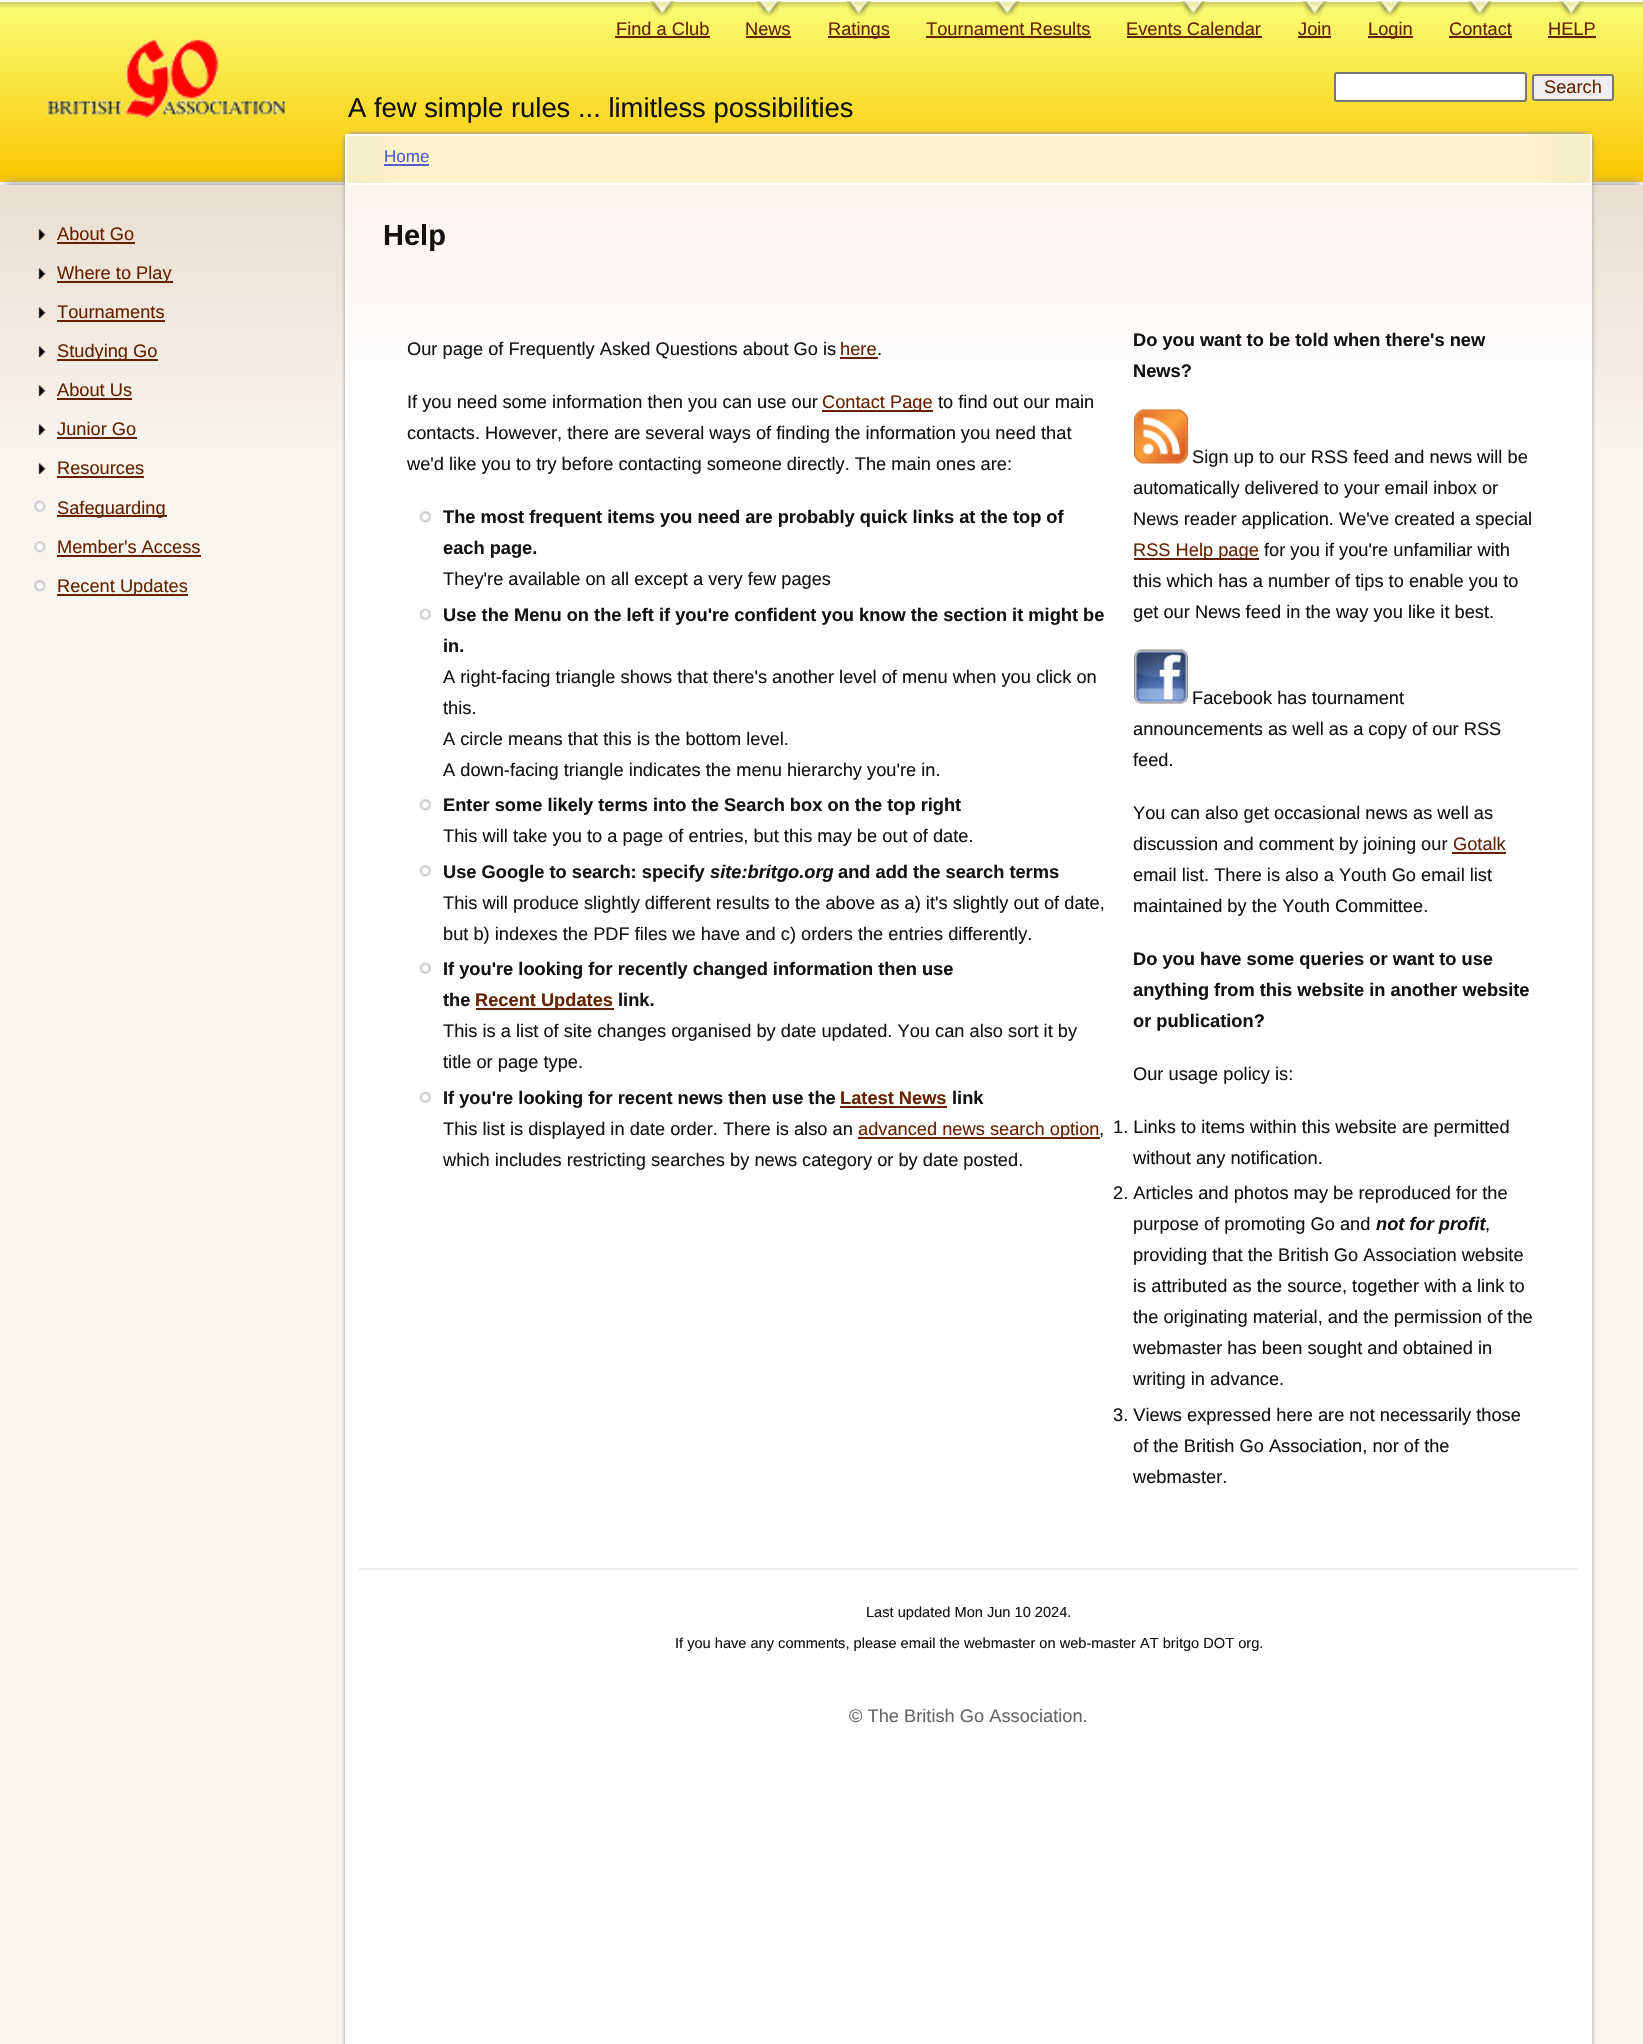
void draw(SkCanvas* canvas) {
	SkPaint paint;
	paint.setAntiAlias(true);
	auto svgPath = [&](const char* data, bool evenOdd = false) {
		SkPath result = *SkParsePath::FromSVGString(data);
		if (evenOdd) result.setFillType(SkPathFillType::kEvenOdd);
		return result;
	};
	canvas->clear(0xffffffff);
	{
		const SkColor colors[] = {0xffd0d361, 0xfffafb71, 0xfffac703};
		const float stops[] = {0.01, 0.04, 0.97};
		const SkPoint ends[] = {{822, 1.5}, {822, 182}};
		paint.setShader(SkGradientShader::MakeLinear(ends, colors, stops, 3, SkTileMode::kClamp));
		paint.setAlpha(255);
	}
	canvas->drawRect(SkRect::MakeXYWH(0, 2, 1643, 180), paint);
	canvas->drawImageRect(SkImages::DeferredFromEncodedData(SkData::MakeFromFileName("img1.png")), SkRect::MakeXYWH(649, 1, 26, 16), SkSamplingOptions());
	SkFont f1(fontMgr->matchFamilyStyle("Liberation Sans", SkFontStyle::Normal()), 18.25);
	f1.setSubpixel(true);
	paint.setShader(nullptr);
	paint.setColor(0xff662200);
	canvas->drawString("Find a Club", 616, 35, f1, paint);
	canvas->drawRect(SkRect::MakeXYWH(615, 36, 95, 2), paint);
	canvas->drawImageRect(SkImages::DeferredFromEncodedData(SkData::MakeFromFileName("img2.png")), SkRect::MakeXYWH(756, 1, 26, 16), SkSamplingOptions());
	canvas->drawString("News", 745, 35, f1, paint);
	canvas->drawRect(SkRect::MakeXYWH(746, 36, 45, 2), paint);
	canvas->drawImageRect(SkImages::DeferredFromEncodedData(SkData::MakeFromFileName("img3.png")), SkRect::MakeXYWH(846, 1, 26, 16), SkSamplingOptions());
	canvas->drawRect(SkRect::MakeXYWH(828, 36, 62, 2), paint);
	canvas->drawString("Ratings", 828, 35, f1, paint);
	canvas->drawImageRect(SkImages::DeferredFromEncodedData(SkData::MakeFromFileName("img4.png")), SkRect::MakeXYWH(994, 1, 26, 16), SkSamplingOptions());
	canvas->drawString("Tournament Results", 926, 35, f1, paint);
	canvas->drawRect(SkRect::MakeXYWH(926, 36, 165, 2), paint);
	canvas->drawImageRect(SkImages::DeferredFromEncodedData(SkData::MakeFromFileName("img1.png")), SkRect::MakeXYWH(1180, 1, 26, 16), SkSamplingOptions());
	canvas->drawString("Events Calendar", 1126, 35, f1, paint);
	canvas->drawRect(SkRect::MakeXYWH(1127, 36, 135, 2), paint);
	canvas->drawImageRect(SkImages::DeferredFromEncodedData(SkData::MakeFromFileName("img3.png")), SkRect::MakeXYWH(1302, 1, 26, 16), SkSamplingOptions());
	canvas->drawString("Join", 1298, 35, f1, paint);
	canvas->drawRect(SkRect::MakeXYWH(1298, 36, 33, 2), paint);
	canvas->drawImageRect(SkImages::DeferredFromEncodedData(SkData::MakeFromFileName("img3.png")), SkRect::MakeXYWH(1377, 1, 26, 16), SkSamplingOptions());
	canvas->drawRect(SkRect::MakeXYWH(1368, 36, 45, 2), paint);
	canvas->drawString("Login", 1368, 35, f1, paint);
	canvas->drawImageRect(SkImages::DeferredFromEncodedData(SkData::MakeFromFileName("img5.png")), SkRect::MakeXYWH(1467, 1, 26, 16), SkSamplingOptions());
	canvas->drawString("Contact", 1449, 35, f1, paint);
	canvas->drawRect(SkRect::MakeXYWH(1449, 36, 63, 2), paint);
	canvas->drawImageRect(SkImages::DeferredFromEncodedData(SkData::MakeFromFileName("img4.png")), SkRect::MakeXYWH(1558, 1, 26, 16), SkSamplingOptions());
	canvas->drawString("HELP", 1548, 35, f1, paint);
	canvas->drawRect(SkRect::MakeXYWH(1548, 36, 48, 2), paint);
	paint.setColor(0xffffffff);
	canvas->drawRoundRect(SkRect::MakeXYWH(1335, 73, 191, 28), 2, 2, paint);
	paint.setStroke(true);
	paint.setStrokeWidth(2);
	paint.setColor(0xff767676);
	canvas->drawRoundRect(SkRect::MakeXYWH(1335, 73, 191, 28), 2, 2, paint);
	paint.setStroke(false);
	paint.setColor(0xffefefef);
	canvas->drawRoundRect(SkRect::MakeXYWH(1533, 75, 80, 25), 2, 2, paint);
	paint.setStroke(true);
	paint.setColor(0xff767676);
	canvas->drawRoundRect(SkRect::MakeXYWH(1533, 75, 80, 25), 2, 2, paint);
	paint.setStroke(false);
	paint.setColor(0xff662200);
	canvas->drawString("Search", 1544, 93, f1, paint);
	canvas->drawImageRect(SkImages::DeferredFromEncodedData(SkData::MakeFromFileName("img6.png")), SkRect::MakeXYWH(46, 39, 241, 80), SkSamplingOptions());
	SkFont f2(fontMgr->matchFamilyStyle("Liberation Sans", SkFontStyle::Normal()), 27.4);
	f2.setSubpixel(true);
	paint.setColor(0xff121212);
	canvas->drawString("A few simple rules ... limitless possibilities", 348, 117, f2, paint);
	paint.setColor(0xff999999);
	paint.setMaskFilter(SkMaskFilter::MakeBlur(kNormal_SkBlurStyle, 4.5));
	canvas->drawRect(SkRect::MakeXYWH(5, 183, 1635, 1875), paint);
	paint.setMaskFilter(nullptr);
	{
		const SkColor colors[] = {0xffeadece, 0xfff8f4ee};
		const float stops[] = {0, 0.13};
		const SkPoint ends[] = {{822, 184}, {822, 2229}};
		paint.setShader(SkGradientShader::MakeLinear(ends, colors, stops, 2, SkTileMode::kClamp));
		paint.setAlpha(255);
	}
	canvas->drawRect(SkRect::MakeXYWH(0, 185, 1643, 1859), paint);
	canvas->drawImageRect(SkImages::DeferredFromEncodedData(SkData::MakeFromFileName("img7.png")), SkRect::MakeXYWH(38, 229, 8, 11), SkSamplingOptions());
	paint.setShader(nullptr);
	paint.setColor(0xff662200);
	canvas->drawString("About Go", 57, 240, f1, paint);
	canvas->drawRect(SkRect::MakeXYWH(57, 242, 78, 2), paint);
	canvas->drawImageRect(SkImages::DeferredFromEncodedData(SkData::MakeFromFileName("img8.png")), SkRect::MakeXYWH(38, 268, 8, 11), SkSamplingOptions());
	canvas->drawRect(SkRect::MakeXYWH(57, 281, 116, 2), paint);
	canvas->drawString("Where to Play", 57, 279, f1, paint);
	canvas->drawImageRect(SkImages::DeferredFromEncodedData(SkData::MakeFromFileName("img9.png")), SkRect::MakeXYWH(38, 307, 8, 11), SkSamplingOptions());
	canvas->drawString("Tournaments", 57, 318, f1, paint);
	canvas->drawRect(SkRect::MakeXYWH(57, 320, 108, 2), paint);
	canvas->drawImageRect(SkImages::DeferredFromEncodedData(SkData::MakeFromFileName("img10.png")), SkRect::MakeXYWH(38, 346, 8, 11), SkSamplingOptions());
	canvas->drawRect(SkRect::MakeXYWH(57, 359, 101, 2), paint);
	canvas->drawString("Studying Go", 57, 357, f1, paint);
	canvas->drawImageRect(SkImages::DeferredFromEncodedData(SkData::MakeFromFileName("img11.png")), SkRect::MakeXYWH(38, 385, 8, 11), SkSamplingOptions());
	canvas->drawString("About Us", 57, 396, f1, paint);
	canvas->drawRect(SkRect::MakeXYWH(57, 398, 75, 2), paint);
	canvas->drawImageRect(SkImages::DeferredFromEncodedData(SkData::MakeFromFileName("img12.png")), SkRect::MakeXYWH(38, 424, 8, 11), SkSamplingOptions());
	canvas->drawString("Junior Go", 57, 435, f1, paint);
	canvas->drawRect(SkRect::MakeXYWH(57, 437, 80, 2), paint);
	canvas->drawImageRect(SkImages::DeferredFromEncodedData(SkData::MakeFromFileName("img13.png")), SkRect::MakeXYWH(38, 463, 8, 11), SkSamplingOptions());
	canvas->drawString("Resources", 57, 474, f1, paint);
	canvas->drawRect(SkRect::MakeXYWH(57, 476, 87, 2), paint);
	canvas->drawImageRect(SkImages::DeferredFromEncodedData(SkData::MakeFromFileName("img14.png")), SkRect::MakeXYWH(34, 500, 12, 12), SkSamplingOptions());
	canvas->drawRect(SkRect::MakeXYWH(57, 515, 110, 2), paint);
	canvas->drawString("Safeguarding", 57, 514, f1, paint);
	canvas->drawImageRect(SkImages::DeferredFromEncodedData(SkData::MakeFromFileName("img15.png")), SkRect::MakeXYWH(34, 541, 12, 12), SkSamplingOptions());
	canvas->drawString("Member's Access", 57, 553, f1, paint);
	canvas->drawRect(SkRect::MakeXYWH(57, 555, 144, 2), paint);
	canvas->drawImageRect(SkImages::DeferredFromEncodedData(SkData::MakeFromFileName("img15.png")), SkRect::MakeXYWH(34, 580, 12, 12), SkSamplingOptions());
	canvas->drawRect(SkRect::MakeXYWH(57, 594, 131, 2), paint);
	canvas->drawString("Recent Updates", 57, 592, f1, paint);
	paint.setColor(0xff999999);
	paint.setMaskFilter(SkMaskFilter::MakeBlur(kNormal_SkBlurStyle, 2));
	canvas->drawRect(SkRect::MakeXYWH(354, 138, 1238, 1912), paint);
	paint.setMaskFilter(nullptr);
	paint.setMaskFilter(SkMaskFilter::MakeBlur(kNormal_SkBlurStyle, 2));
	canvas->drawRect(SkRect::MakeXYWH(345, 138, 1238, 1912), paint);
	paint.setMaskFilter(nullptr);
	paint.setMaskFilter(SkMaskFilter::MakeBlur(kNormal_SkBlurStyle, 2));
	canvas->drawRect(SkRect::MakeXYWH(350, 134, 1237, 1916), paint);
	paint.setMaskFilter(nullptr);
	{
		const SkColor colors[] = {0xfffbf1eb, 0xffffffff};
		const float stops[] = {0, 0.13};
		const SkPoint ends[] = {{968, 134}, {968, 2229}};
		paint.setShader(SkGradientShader::MakeLinear(ends, colors, stops, 2, SkTileMode::kClamp));
		paint.setAlpha(255);
	}
	canvas->drawRect(SkRect::MakeXYWH(345, 134, 1247, 1910), paint);
	paint.setShader(nullptr);
	paint.setColor(0xff999999);
	paint.setMaskFilter(SkMaskFilter::MakeBlur(kNormal_SkBlurStyle, 2));
	canvas->drawRect(SkRect::MakeXYWH(354, 138, 1238, 42), paint);
	paint.setMaskFilter(nullptr);
	paint.setMaskFilter(SkMaskFilter::MakeBlur(kNormal_SkBlurStyle, 2));
	canvas->drawRect(SkRect::MakeXYWH(345, 138, 1238, 42), paint);
	paint.setMaskFilter(nullptr);
	paint.setMaskFilter(SkMaskFilter::MakeBlur(kNormal_SkBlurStyle, 2));
	canvas->drawRect(SkRect::MakeXYWH(350, 134, 1237, 42), paint);
	paint.setMaskFilter(nullptr);
	{
		const SkColor colors[] = {0xfff5edc7, 0xfffdf4cc};
		const float stops[] = {0, 0.05};
		const SkPoint ends[] = {{347, 159}, {1590, 159}};
		paint.setShader(SkGradientShader::MakeLinear(ends, colors, stops, 2, SkTileMode::kClamp));
		paint.setAlpha(255);
	}
	canvas->drawRect(SkRect::MakeXYWH(347, 134, 1243, 49), paint);
	paint.setStroke(true);
	paint.setShader(nullptr);
	paint.setColor(0xffffffff);
	canvas->drawPath(svgPath("M348 135H1589C1590 135 1591 136 1591 137V184H346V137C346 136 347 135 348 135Z"), paint);
	paint.setStroke(false);
	{
		const SkColor colors[] = {0xfff5edc7, 0xfffdf4cc, 0x00fdf4cc};
		const float stops[] = {0, 0.05, 0.05};
		const SkPoint ends[] = {{1590, 159}, {347, 159}};
		paint.setShader(SkGradientShader::MakeLinear(ends, colors, stops, 3, SkTileMode::kClamp));
		paint.setAlpha(255);
	}
	canvas->drawRect(SkRect::MakeXYWH(1528, 135, 62, 48), paint);
	SkFont f3(fontMgr->matchFamilyStyle("Liberation Sans", SkFontStyle::Normal()), 17);
	f3.setSubpixel(true);
	paint.setShader(nullptr);
	paint.setColor(0xff525cd6);
	canvas->drawString("Home", 384, 162, f3, paint);
	canvas->drawRect(SkRect::MakeXYWH(384, 164, 45, 2), paint);
	SkFont f4(fontMgr->matchFamilyStyle("Liberation Sans", SkFontStyle::Bold()), 29);
	f4.setSubpixel(true);
	paint.setColor(0xff121212);
	canvas->drawString("Help", 383, 245, f4, paint);
	paint.setColor(0xfff0eeeb);
	canvas->drawRect(SkRect::MakeXYWH(359, 1568, 1219, 2), paint);
	paint.setColor(0xff121212);
	canvas->drawString("Our page of Frequently Asked Questions about Go is", 407, 355, f1, paint);
	paint.setColor(0xff662200);
	canvas->drawString("here", 840, 355, f1, paint);
	canvas->drawRect(SkRect::MakeXYWH(840, 357, 38, 2), paint);
	paint.setColor(0xff121212);
	canvas->drawString(".", 877, 355, f1, paint);
	canvas->drawString("If you need some information then you can use our", 407, 408, f1, paint);
	paint.setColor(0xff662200);
	canvas->drawRect(SkRect::MakeXYWH(822, 410, 111, 2), paint);
	canvas->drawString("Contact Page", 822, 408, f1, paint);
	paint.setColor(0xff121212);
	canvas->drawString("to find out our main", 938, 408, f1, paint);
	canvas->drawString("contacts. However, there are several ways of finding the information you need that", 407, 439, f1, paint);
	canvas->drawString("we'd like you to try before contacting someone directly. The main ones are:", 407, 470, f1, paint);
	canvas->drawImageRect(SkImages::DeferredFromEncodedData(SkData::MakeFromFileName("img16.png")), SkRect::MakeXYWH(419, 511, 12, 12), SkSamplingOptions());
	SkFont f5(fontMgr->matchFamilyStyle("Liberation Sans", SkFontStyle::Bold()), 18.25);
	f5.setSubpixel(true);
	canvas->drawString("The most frequent items you need are probably quick links at the top of", 443, 523, f5, paint);
	canvas->drawString("each page.", 443, 554, f5, paint);
	canvas->drawString("They're available on all except a very few pages", 443, 585, f1, paint);
	canvas->drawImageRect(SkImages::DeferredFromEncodedData(SkData::MakeFromFileName("img17.png")), SkRect::MakeXYWH(419, 608, 12, 12), SkSamplingOptions());
	canvas->drawString("Use the Menu on the left if you're confident you know the section it might be", 443, 621, f5, paint);
	canvas->drawString("in.", 443, 652, f5, paint);
	canvas->drawString("A right-facing triangle shows that there's another level of menu when you click on", 443, 683, f1, paint);
	canvas->drawString("this.", 443, 714, f1, paint);
	canvas->drawString("A circle means that this is the bottom level.", 443, 745, f1, paint);
	canvas->drawString("A down-facing triangle indicates the menu hierarchy you're in.", 443, 776, f1, paint);
	canvas->drawImageRect(SkImages::DeferredFromEncodedData(SkData::MakeFromFileName("img16.png")), SkRect::MakeXYWH(419, 799, 12, 12), SkSamplingOptions());
	canvas->drawString("Enter some likely terms into the Search box on the top right", 443, 811, f5, paint);
	canvas->drawString("This will take you to a page of entries, but this may be out of date.", 443, 842, f1, paint);
	canvas->drawImageRect(SkImages::DeferredFromEncodedData(SkData::MakeFromFileName("img16.png")), SkRect::MakeXYWH(419, 865, 12, 12), SkSamplingOptions());
	canvas->drawString("Use Google to search: specify", 443, 878, f5, paint);
	SkFont f6(fontMgr->matchFamilyStyle("Liberation Sans", SkFontStyle::BoldItalic()), 18.25);
	f6.setSubpixel(true);
	canvas->drawString("site:britgo.org", 710, 878, f6, paint);
	canvas->drawString("and add the search terms", 838, 878, f5, paint);
	canvas->drawString("This will produce slightly different results to the above as a) it's slightly out of date,", 443, 909, f1, paint);
	canvas->drawString("but b) indexes the PDF files we have and c) orders the entries differently.", 443, 940, f1, paint);
	canvas->drawImageRect(SkImages::DeferredFromEncodedData(SkData::MakeFromFileName("img17.png")), SkRect::MakeXYWH(419, 962, 12, 12), SkSamplingOptions());
	canvas->drawString("If you're looking for recently changed information then use", 443, 975, f5, paint);
	canvas->drawString("the", 443, 1006, f5, paint);
	paint.setColor(0xff662200);
	canvas->drawRect(SkRect::MakeXYWH(476, 1008, 138, 2), paint);
	canvas->drawString("Recent Updates", 475, 1006, f5, paint);
	paint.setColor(0xff121212);
	canvas->drawString("link.", 618, 1006, f5, paint);
	canvas->drawString("This is a list of site changes organised by date updated. You can also sort it by", 443, 1037, f1, paint);
	canvas->drawString("title or page type.", 443, 1068, f1, paint);
	canvas->drawImageRect(SkImages::DeferredFromEncodedData(SkData::MakeFromFileName("img17.png")), SkRect::MakeXYWH(419, 1091, 12, 12), SkSamplingOptions());
	canvas->drawString("If you're looking for recent news then use the", 443, 1104, f5, paint);
	paint.setColor(0xff662200);
	canvas->drawString("Latest News", 840, 1104, f5, paint);
	canvas->drawRect(SkRect::MakeXYWH(840, 1106, 107, 2), paint);
	paint.setColor(0xff121212);
	canvas->drawString("link", 952, 1104, f5, paint);
	canvas->drawString("This list is displayed in date order. There is also an", 443, 1135, f1, paint);
	paint.setColor(0xff662200);
	canvas->drawRect(SkRect::MakeXYWH(858, 1137, 242, 2), paint);
	canvas->drawString("advanced news search option", 858, 1135, f1, paint);
	paint.setColor(0xff121212);
	canvas->drawString(",", 1099, 1135, f1, paint);
	canvas->drawString("which includes restricting searches by news category or by date posted.", 443, 1166, f1, paint);
	canvas->drawString("Do you want to be told when there's new", 1133, 346, f5, paint);
	canvas->drawString("News?", 1133, 377, f5, paint);
	canvas->drawImageRect(SkImages::DeferredFromEncodedData(SkData::MakeFromFileName("img18.png")), SkRect::MakeXYWH(1134, 409, 54, 55), SkSamplingOptions());
	canvas->drawString("Sign up to our RSS feed and news will be", 1192, 463, f1, paint);
	canvas->drawString("automatically delivered to your email inbox or", 1133, 494, f1, paint);
	canvas->drawString("News reader application. We've created a special", 1133, 525, f1, paint);
	paint.setColor(0xff662200);
	canvas->drawRect(SkRect::MakeXYWH(1134, 558, 125, 2), paint);
	canvas->drawString("RSS Help page", 1133, 556, f1, paint);
	paint.setColor(0xff121212);
	canvas->drawString("for you if you're unfamiliar with", 1264, 556, f1, paint);
	canvas->drawString("this which has a number of tips to enable you to", 1133, 587, f1, paint);
	canvas->drawString("get our News feed in the way you like it best.", 1133, 618, f1, paint);
	canvas->drawImageRect(SkImages::DeferredFromEncodedData(SkData::MakeFromFileName("img19.png")), SkRect::MakeXYWH(1134, 649, 54, 55), SkSamplingOptions());
	canvas->drawString("Facebook has tournament", 1192, 704, f1, paint);
	canvas->drawString("announcements as well as a copy of our RSS", 1133, 735, f1, paint);
	canvas->drawString("feed.", 1133, 766, f1, paint);
	canvas->drawString("You can also get occasional news as well as", 1133, 819, f1, paint);
	canvas->drawString("discussion and comment by joining our", 1133, 850, f1, paint);
	paint.setColor(0xff662200);
	canvas->drawString("Gotalk", 1453, 850, f1, paint);
	canvas->drawRect(SkRect::MakeXYWH(1452, 852, 54, 2), paint);
	paint.setColor(0xff121212);
	canvas->drawString("email list. There is also a Youth Go email list", 1133, 881, f1, paint);
	canvas->drawString("maintained by the Youth Committee.", 1133, 912, f1, paint);
	canvas->drawString("Do you have some queries or want to use", 1133, 965, f5, paint);
	canvas->drawString("anything from this website in another website", 1133, 996, f5, paint);
	canvas->drawString("or publication?", 1133, 1027, f5, paint);
	canvas->drawString("Our usage policy is:", 1133, 1080, f1, paint);
	canvas->drawString("1. Links to items within this website are permitted", 1113, 1133, f1, paint);
	canvas->drawString("without any notification.", 1133, 1164, f1, paint);
	canvas->drawString("2. Articles and photos may be reproduced for the", 1113, 1199, f1, paint);
	canvas->drawString("purpose of promoting Go and", 1133, 1230, f1, paint);
	canvas->drawString("not for profit", 1376, 1230, f6, paint);
	canvas->drawString(",", 1485, 1230, f1, paint);
	canvas->drawString("providing that the British Go Association website", 1133, 1261, f1, paint);
	canvas->drawString("is attributed as the source, together with a link to", 1133, 1292, f1, paint);
	canvas->drawString("the originating material, and the permission of the", 1133, 1323, f1, paint);
	canvas->drawString("webmaster has been sought and obtained in", 1133, 1354, f1, paint);
	canvas->drawString("writing in advance.", 1133, 1385, f1, paint);
	canvas->drawString("3. Views expressed here are not necessarily those", 1113, 1421, f1, paint);
	canvas->drawString("of the British Go Association, nor of the", 1133, 1452, f1, paint);
	canvas->drawString("webmaster.", 1133, 1483, f1, paint);
	SkFont f7(fontMgr->matchFamilyStyle("Liberation Sans", SkFontStyle::Normal()), 14.6);
	f7.setSubpixel(true);
	canvas->drawString("Last updated Mon Jun 10 2024.", 866, 1617, f7, paint);
	canvas->drawString("If you have any comments, please email the webmaster on web-master AT britgo DOT org.", 675, 1648, f7, paint);
	paint.setColor(0xff656565);
	canvas->drawString("© The British Go Association.", 849, 1722, f1, paint);
}
